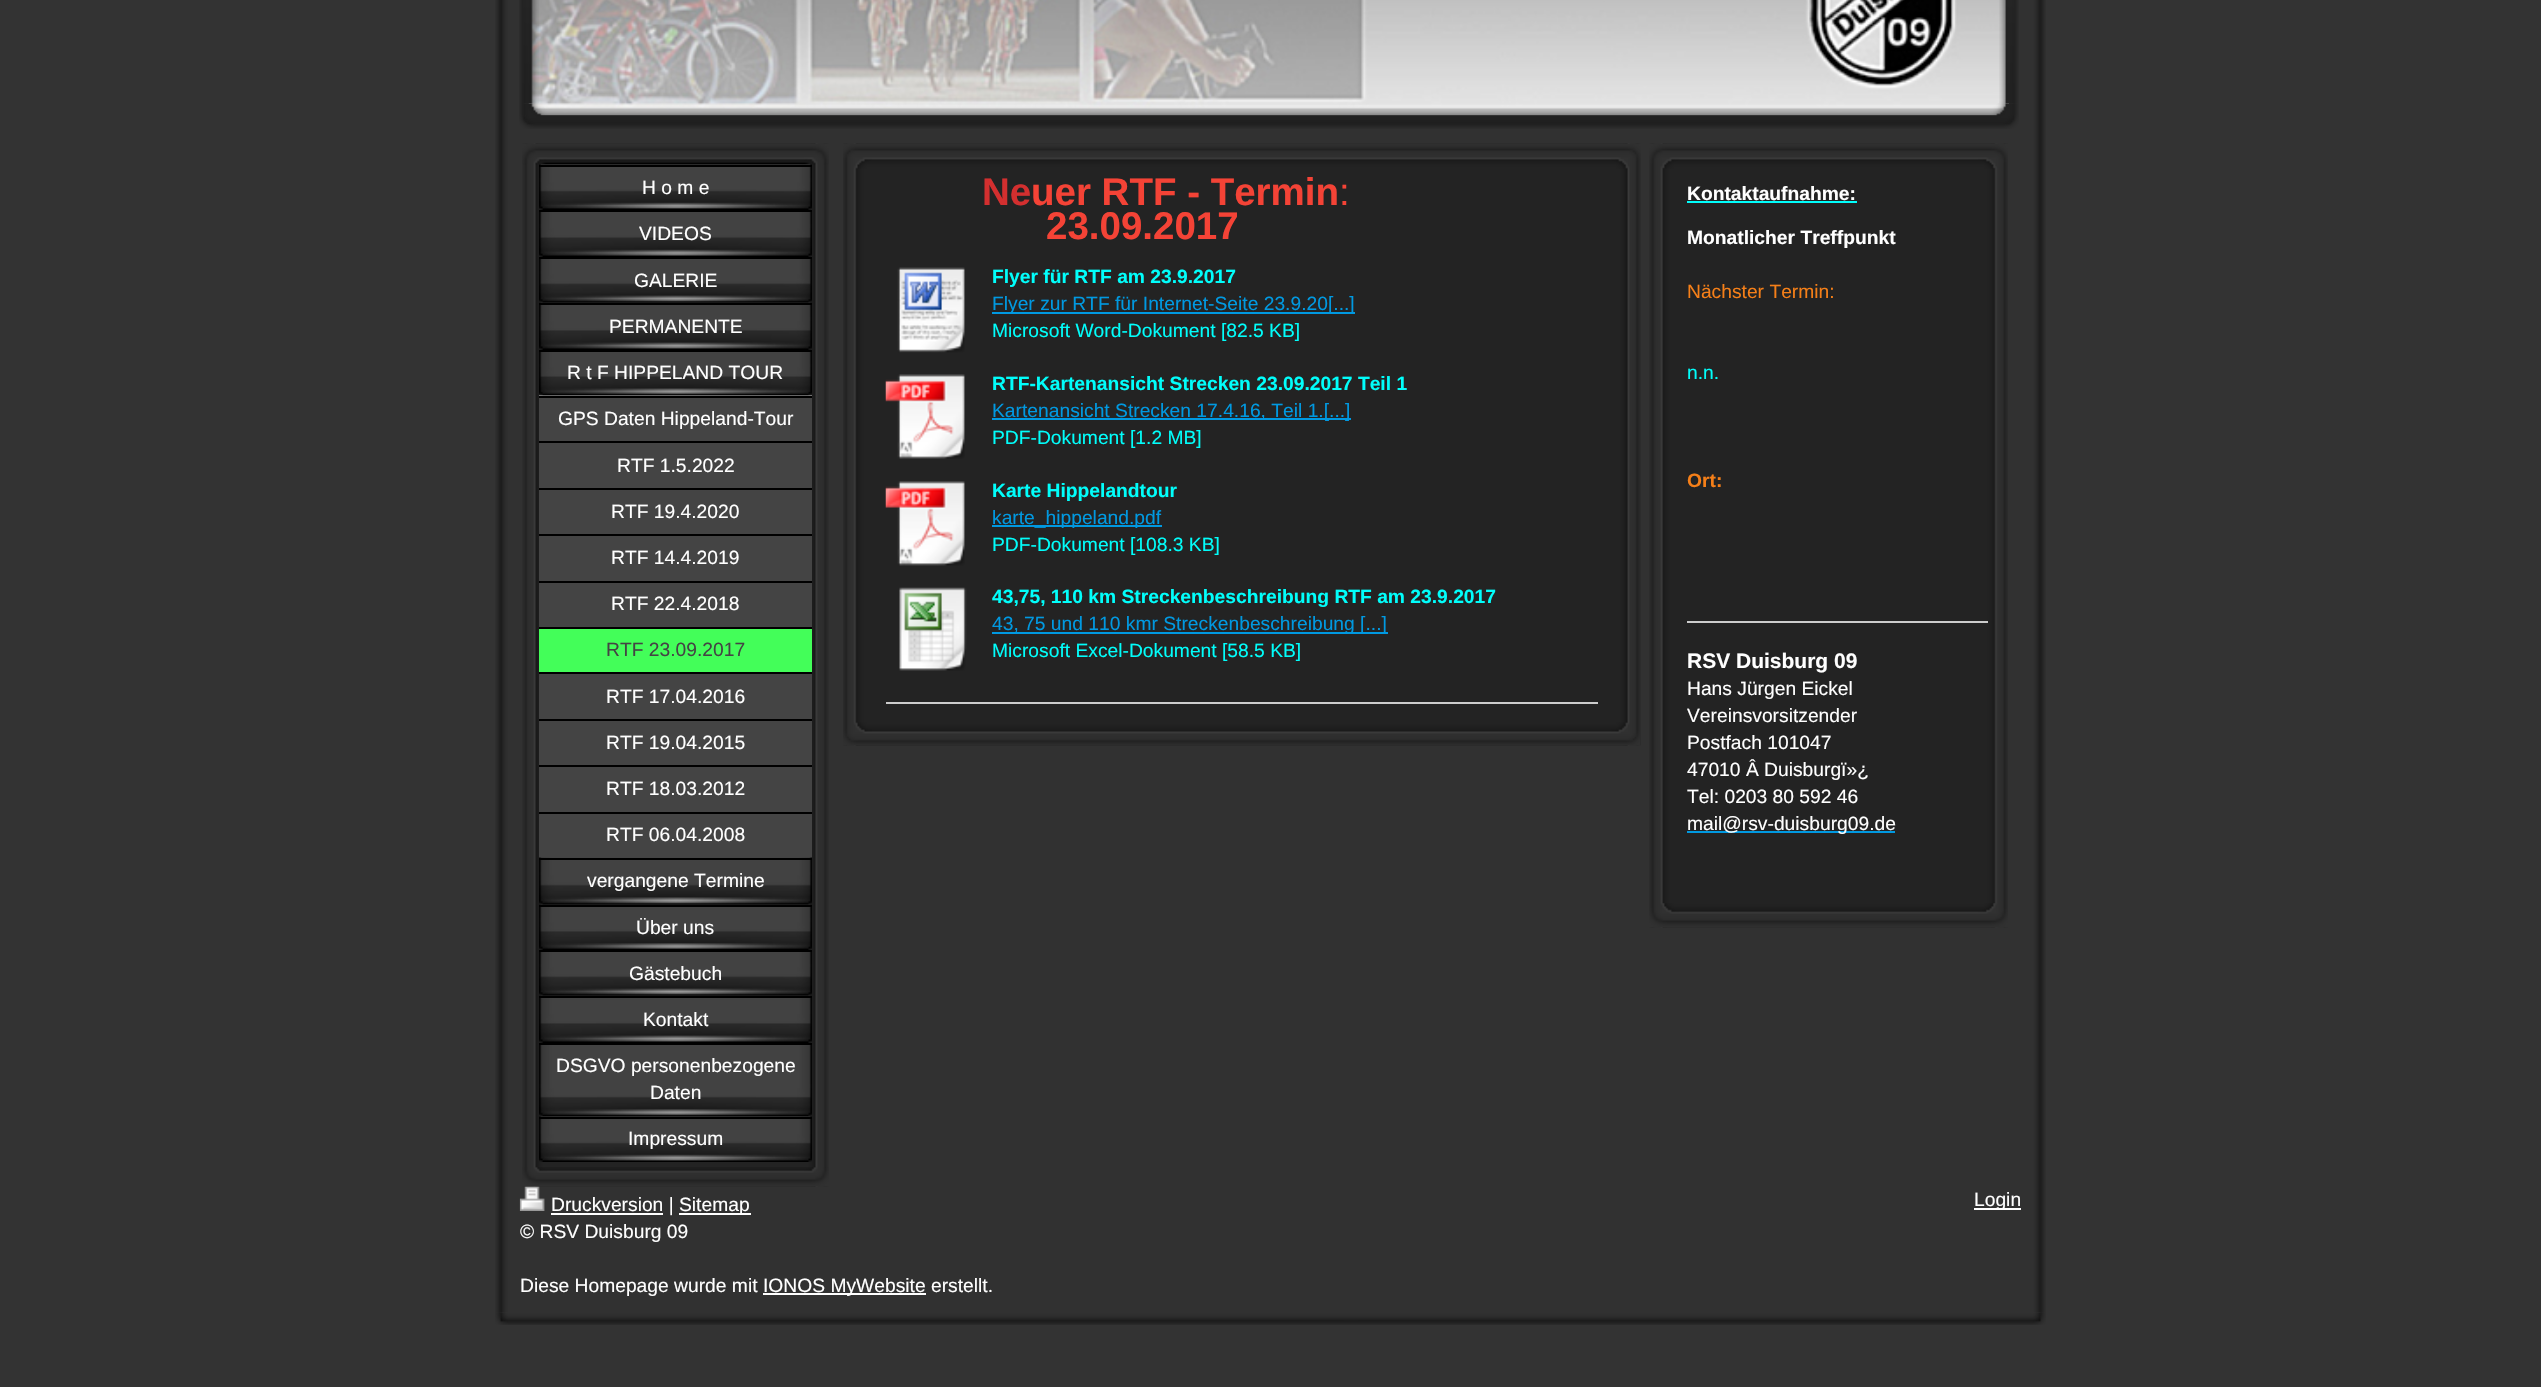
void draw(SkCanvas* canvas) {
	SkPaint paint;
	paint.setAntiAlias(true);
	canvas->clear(0xff333333);
	canvas->drawImageRect(SkImages::DeferredFromEncodedData(SkData::MakeFromFileName("img1.png")), SkRect::MakeXYWH(495, 0, 1551, 1313), SkSamplingOptions());
	canvas->drawImageRect(SkImages::DeferredFromEncodedData(SkData::MakeFromFileName("img3.png")), SkRect::MakeXYWH(528, 0, 1481, 116), SkSamplingOptions());
	canvas->drawImageRect(SkImages::DeferredFromEncodedData(SkData::MakeFromFileName("img2.png")), SkRect::MakeXYWH(519, 0, 20, 104), SkSamplingOptions());
	canvas->drawImageRect(SkImages::DeferredFromEncodedData(SkData::MakeFromFileName("img5.png")), SkRect::MakeXYWH(519, 103, 1500, 26), SkSamplingOptions());
	canvas->drawImageRect(SkImages::DeferredFromEncodedData(SkData::MakeFromFileName("img4.png")), SkRect::MakeXYWH(1999, 0, 20, 104), SkSamplingOptions());
	canvas->drawImageRect(SkImages::DeferredFromEncodedData(SkData::MakeFromFileName("img6.png")), SkRect::MakeXYWH(522, 143, 307, 1044), SkSamplingOptions());
	canvas->drawImageRect(SkImages::DeferredFromEncodedData(SkData::MakeFromFileName("img7.png")), SkRect::MakeXYWH(522, 143, 307, 22), SkSamplingOptions());
	canvas->drawImageRect(SkImages::DeferredFromEncodedData(SkData::MakeFromFileName("img8.png")), SkRect::MakeXYWH(539, 164, 273, 46), SkSamplingOptions());
	paint.setColor(0xff000000);
	canvas->drawRect(SkRect::MakeXYWH(539, 165, 273, 2), paint);
	SkFont f1(fontMgr->matchFamilyStyle("Liberation Sans", SkFontStyle::Normal()), 19.25);
	f1.setSubpixel(true);
	paint.setColor(0xffffffff);
	canvas->drawString("H o m e", 642, 194, f1, paint);
	canvas->drawImageRect(SkImages::DeferredFromEncodedData(SkData::MakeFromFileName("img9.png")), SkRect::MakeXYWH(539, 212, 273, 45), SkSamplingOptions());
	paint.setColor(0xff000000);
	canvas->drawRect(SkRect::MakeXYWH(539, 210, 273, 2), paint);
	paint.setColor(0xffffffff);
	canvas->drawString("VIDEOS", 639, 240, f1, paint);
	canvas->drawImageRect(SkImages::DeferredFromEncodedData(SkData::MakeFromFileName("img10.png")), SkRect::MakeXYWH(539, 259, 273, 44), SkSamplingOptions());
	paint.setColor(0xff000000);
	canvas->drawRect(SkRect::MakeXYWH(539, 257, 273, 2), paint);
	paint.setColor(0xffffffff);
	canvas->drawString("GALERIE", 634, 287, f1, paint);
	canvas->drawImageRect(SkImages::DeferredFromEncodedData(SkData::MakeFromFileName("img11.png")), SkRect::MakeXYWH(539, 302, 273, 48), SkSamplingOptions());
	paint.setColor(0xff000000);
	canvas->drawRect(SkRect::MakeXYWH(539, 303, 273, 2), paint);
	paint.setColor(0xffffffff);
	canvas->drawString("PERMANENTE", 609, 333, f1, paint);
	paint.setColor(0xffcccccc);
	canvas->drawRect(SkRect::MakeXYWH(539, 395, 273, 1), paint);
	canvas->drawImageRect(SkImages::DeferredFromEncodedData(SkData::MakeFromFileName("img12.png")), SkRect::MakeXYWH(539, 352, 273, 44), SkSamplingOptions());
	paint.setColor(0xff000000);
	canvas->drawRect(SkRect::MakeXYWH(539, 350, 273, 2), paint);
	paint.setColor(0xffffffff);
	canvas->drawString("R t F HIPPELAND TOUR", 567, 379, f1, paint);
	paint.setColor(0xff444444);
	canvas->drawRect(SkRect::MakeXYWH(539, 398, 273, 43), paint);
	paint.setColor(0xff000000);
	canvas->drawRect(SkRect::MakeXYWH(539, 396, 273, 2), paint);
	paint.setColor(0xffffffff);
	canvas->drawString("GPS Daten Hippeland-Tour", 558, 425, f1, paint);
	paint.setColor(0xff444444);
	canvas->drawRect(SkRect::MakeXYWH(539, 443, 273, 45), paint);
	paint.setColor(0xff000000);
	canvas->drawRect(SkRect::MakeXYWH(539, 441, 273, 2), paint);
	paint.setColor(0xffffffff);
	canvas->drawString("RTF 1.5.2022", 617, 472, f1, paint);
	paint.setColor(0xff444444);
	canvas->drawRect(SkRect::MakeXYWH(539, 490, 273, 44), paint);
	paint.setColor(0xff000000);
	canvas->drawRect(SkRect::MakeXYWH(539, 488, 273, 2), paint);
	paint.setColor(0xffffffff);
	canvas->drawString("RTF 19.4.2020", 611, 518, f1, paint);
	paint.setColor(0xff444444);
	canvas->drawRect(SkRect::MakeXYWH(539, 536, 273, 45), paint);
	paint.setColor(0xff000000);
	canvas->drawRect(SkRect::MakeXYWH(539, 534, 273, 2), paint);
	paint.setColor(0xffffffff);
	canvas->drawString("RTF 14.4.2019", 611, 564, f1, paint);
	paint.setColor(0xff444444);
	canvas->drawRect(SkRect::MakeXYWH(539, 583, 273, 44), paint);
	paint.setColor(0xff000000);
	canvas->drawRect(SkRect::MakeXYWH(539, 581, 273, 2), paint);
	paint.setColor(0xffffffff);
	canvas->drawString("RTF 22.4.2018", 611, 610, f1, paint);
	paint.setColor(0xff43fe59);
	canvas->drawRect(SkRect::MakeXYWH(539, 629, 273, 43), paint);
	paint.setColor(0xff000000);
	canvas->drawRect(SkRect::MakeXYWH(539, 627, 273, 2), paint);
	paint.setColor(0xff444444);
	canvas->drawString("RTF 23.09.2017", 606, 656, f1, paint);
	canvas->drawRect(SkRect::MakeXYWH(539, 674, 273, 45), paint);
	paint.setColor(0xff000000);
	canvas->drawRect(SkRect::MakeXYWH(539, 672, 273, 2), paint);
	paint.setColor(0xffffffff);
	canvas->drawString("RTF 17.04.2016", 606, 703, f1, paint);
	paint.setColor(0xff444444);
	canvas->drawRect(SkRect::MakeXYWH(539, 721, 273, 44), paint);
	paint.setColor(0xff000000);
	canvas->drawRect(SkRect::MakeXYWH(539, 719, 273, 2), paint);
	paint.setColor(0xffffffff);
	canvas->drawString("RTF 19.04.2015", 606, 749, f1, paint);
	paint.setColor(0xff444444);
	canvas->drawRect(SkRect::MakeXYWH(539, 767, 273, 45), paint);
	paint.setColor(0xff000000);
	canvas->drawRect(SkRect::MakeXYWH(539, 765, 273, 2), paint);
	paint.setColor(0xffffffff);
	canvas->drawString("RTF 18.03.2012", 606, 795, f1, paint);
	paint.setColor(0xff444444);
	canvas->drawRect(SkRect::MakeXYWH(539, 814, 273, 44), paint);
	paint.setColor(0xff000000);
	canvas->drawRect(SkRect::MakeXYWH(539, 812, 273, 2), paint);
	paint.setColor(0xffffffff);
	canvas->drawString("RTF 06.04.2008", 606, 841, f1, paint);
	canvas->drawImageRect(SkImages::DeferredFromEncodedData(SkData::MakeFromFileName("img13.png")), SkRect::MakeXYWH(539, 857, 273, 48), SkSamplingOptions());
	paint.setColor(0xff000000);
	canvas->drawRect(SkRect::MakeXYWH(539, 858, 273, 2), paint);
	paint.setColor(0xffffffff);
	canvas->drawString("vergangene Termine", 587, 887, f1, paint);
	canvas->drawImageRect(SkImages::DeferredFromEncodedData(SkData::MakeFromFileName("img14.png")), SkRect::MakeXYWH(539, 904, 273, 46), SkSamplingOptions());
	paint.setColor(0xff000000);
	canvas->drawRect(SkRect::MakeXYWH(539, 905, 273, 2), paint);
	paint.setColor(0xffffffff);
	canvas->drawString("Über uns", 636, 934, f1, paint);
	canvas->drawImageRect(SkImages::DeferredFromEncodedData(SkData::MakeFromFileName("img10.png")), SkRect::MakeXYWH(539, 952, 273, 44), SkSamplingOptions());
	paint.setColor(0xff000000);
	canvas->drawRect(SkRect::MakeXYWH(539, 950, 273, 2), paint);
	paint.setColor(0xffffffff);
	canvas->drawString("Gästebuch", 629, 980, f1, paint);
	canvas->drawImageRect(SkImages::DeferredFromEncodedData(SkData::MakeFromFileName("img11.png")), SkRect::MakeXYWH(539, 995, 273, 48), SkSamplingOptions());
	paint.setColor(0xff000000);
	canvas->drawRect(SkRect::MakeXYWH(539, 996, 273, 2), paint);
	paint.setColor(0xffffffff);
	canvas->drawString("Kontakt", 643, 1026, f1, paint);
	canvas->drawImageRect(SkImages::DeferredFromEncodedData(SkData::MakeFromFileName("img15.png")), SkRect::MakeXYWH(539, 1045, 273, 72), SkSamplingOptions());
	paint.setColor(0xff000000);
	canvas->drawRect(SkRect::MakeXYWH(539, 1043, 273, 2), paint);
	paint.setColor(0xffffffff);
	canvas->drawString("DSGVO personenbezogene", 556, 1072, f1, paint);
	canvas->drawString("Daten", 650, 1099, f1, paint);
	canvas->drawImageRect(SkImages::DeferredFromEncodedData(SkData::MakeFromFileName("img16.png")), SkRect::MakeXYWH(539, 1116, 273, 46), SkSamplingOptions());
	paint.setColor(0xff000000);
	canvas->drawRect(SkRect::MakeXYWH(539, 1117, 273, 2), paint);
	paint.setColor(0xffffffff);
	canvas->drawString("Impressum", 628, 1145, f1, paint);
	canvas->drawImageRect(SkImages::DeferredFromEncodedData(SkData::MakeFromFileName("img17.png")), SkRect::MakeXYWH(522, 1167, 307, 20), SkSamplingOptions());
	canvas->drawImageRect(SkImages::DeferredFromEncodedData(SkData::MakeFromFileName("img18.png")), SkRect::MakeXYWH(843, 143, 798, 603), SkSamplingOptions());
	canvas->drawImageRect(SkImages::DeferredFromEncodedData(SkData::MakeFromFileName("img19.png")), SkRect::MakeXYWH(843, 143, 798, 26), SkSamplingOptions());
	SkFont f2(fontMgr->matchFamilyStyle("Liberation Sans", SkFontStyle::Bold()), 38.5);
	f2.setSubpixel(true);
	paint.setColor(0xffd32f2f);
	canvas->drawString("Ne", 982, 205, f2, paint);
	paint.setColor(0xfff44336);
	canvas->drawString("uer RTF - Termin", 1031, 205, f2, paint);
	SkFont f3(fontMgr->matchFamilyStyle("Liberation Sans", SkFontStyle::Normal()), 38.5);
	f3.setSubpixel(true);
	canvas->drawString(":", 1339, 205, f3, paint);
	canvas->drawString("23.09.2017", 1046, 239, f2, paint);
	canvas->drawImageRect(SkImages::DeferredFromEncodedData(SkData::MakeFromFileName("img20.png")), SkRect::MakeXYWH(897, 267, 68, 86), SkSamplingOptions());
	SkFont f4(fontMgr->matchFamilyStyle("Liberation Sans", SkFontStyle::Bold()), 19.25);
	f4.setSubpixel(true);
	paint.setColor(0xff01fefb);
	canvas->drawString("Flyer für RTF am 23.9.2017", 992, 283, f4, paint);
	paint.setColor(0xff0099e1);
	canvas->drawRect(SkRect::MakeXYWH(992, 312, 363, 2), paint);
	canvas->drawString("Flyer zur RTF für Internet-Seite 23.9.20[...]", 992, 310, f1, paint);
	paint.setColor(0xff01fefb);
	canvas->drawString("Microsoft Word-Dokument [82.5 KB]", 992, 337, f1, paint);
	canvas->drawImageRect(SkImages::DeferredFromEncodedData(SkData::MakeFromFileName("img21.png")), SkRect::MakeXYWH(885, 374, 80, 85), SkSamplingOptions());
	canvas->drawString("RTF-Kartenansicht Strecken 23.09.2017 Teil 1", 992, 390, f4, paint);
	paint.setColor(0xff0099e1);
	canvas->drawRect(SkRect::MakeXYWH(992, 418, 359, 2), paint);
	canvas->drawString("Kartenansicht Strecken 17.4.16, Teil 1.[...]", 992, 417, f1, paint);
	paint.setColor(0xff01fefb);
	canvas->drawString("PDF-Dokument [1.2 MB]", 992, 444, f1, paint);
	canvas->drawImageRect(SkImages::DeferredFromEncodedData(SkData::MakeFromFileName("img22.png")), SkRect::MakeXYWH(885, 481, 80, 85), SkSamplingOptions());
	canvas->drawString("Karte Hippelandtour", 992, 497, f4, paint);
	paint.setColor(0xff0099e1);
	canvas->drawRect(SkRect::MakeXYWH(992, 525, 170, 2), paint);
	canvas->drawString("karte_hippeland.pdf", 992, 524, f1, paint);
	paint.setColor(0xff01fefb);
	canvas->drawString("PDF-Dokument [108.3 KB]", 992, 551, f1, paint);
	canvas->drawImageRect(SkImages::DeferredFromEncodedData(SkData::MakeFromFileName("img23.png")), SkRect::MakeXYWH(899, 587, 68, 84), SkSamplingOptions());
	canvas->drawString("43,75, 110 km Streckenbeschreibung RTF am 23.9.2017", 992, 603, f4, paint);
	paint.setColor(0xff0099e1);
	canvas->drawRect(SkRect::MakeXYWH(992, 632, 396, 2), paint);
	canvas->drawString("43, 75 und 110 kmr Streckenbeschreibung [...]", 992, 630, f1, paint);
	paint.setColor(0xff01fefb);
	canvas->drawString("Microsoft Excel-Dokument [58.5 KB]", 992, 657, f1, paint);
	paint.setColor(0xffcccccc);
	canvas->drawRect(SkRect::MakeXYWH(886, 702, 712, 2), paint);
	canvas->drawImageRect(SkImages::DeferredFromEncodedData(SkData::MakeFromFileName("img24.png")), SkRect::MakeXYWH(843, 722, 797, 24), SkSamplingOptions());
	canvas->drawImageRect(SkImages::DeferredFromEncodedData(SkData::MakeFromFileName("img25.png")), SkRect::MakeXYWH(1649, 143, 359, 785), SkSamplingOptions());
	canvas->drawImageRect(SkImages::DeferredFromEncodedData(SkData::MakeFromFileName("img26.png")), SkRect::MakeXYWH(1649, 143, 359, 26), SkSamplingOptions());
	paint.setColor(0xffffffff);
	canvas->drawString("Kontaktaufnahme:", 1687, 200, f4, paint);
	paint.setColor(0xff01fefb);
	canvas->drawRect(SkRect::MakeXYWH(1687, 201, 170, 2), paint);
	paint.setColor(0xffffffff);
	canvas->drawString("Monatlicher Treffpunkt", 1687, 244, f4, paint);
	paint.setColor(0xfff57f18);
	canvas->drawString("Nächster Termin:", 1687, 298, f1, paint);
	paint.setColor(0xff01fefb);
	canvas->drawString("n.n.", 1687, 379, f1, paint);
	paint.setColor(0xfff57f18);
	canvas->drawString("Ort:", 1687, 487, f4, paint);
	paint.setColor(0xffcccccc);
	canvas->drawRect(SkRect::MakeXYWH(1687, 621, 301, 2), paint);
	SkFont f5(fontMgr->matchFamilyStyle("Liberation Sans", SkFontStyle::Bold()), 21);
	f5.setSubpixel(true);
	paint.setColor(0xffffffff);
	canvas->drawString("RSV Duisburg 09", 1687, 668, f5, paint);
	canvas->drawString("Hans Jürgen Eickel", 1687, 695, f1, paint);
	canvas->drawString("Vereinsvorsitzender", 1687, 722, f1, paint);
	canvas->drawString("Postfach 101047", 1687, 749, f1, paint);
	canvas->drawString("47010 Â Duisburgï»¿", 1687, 776, f1, paint);
	canvas->drawString("Tel: 0203 80 592 46", 1687, 803, f1, paint);
	paint.setColor(0xff0099e1);
	canvas->drawRect(SkRect::MakeXYWH(1687, 831, 208, 2), paint);
	paint.setColor(0xffffffff);
	canvas->drawString("mail@rsv-duisburg09.de", 1687, 830, f1, paint);
	canvas->drawImageRect(SkImages::DeferredFromEncodedData(SkData::MakeFromFileName("img27.png")), SkRect::MakeXYWH(1649, 903, 359, 25), SkSamplingOptions());
	canvas->drawImageRect(SkImages::DeferredFromEncodedData(SkData::MakeFromFileName("img28.png")), SkRect::MakeXYWH(519, 1186, 26, 25), SkSamplingOptions());
	canvas->drawRect(SkRect::MakeXYWH(551, 1213, 112, 2), paint);
	canvas->drawString("Druckversion |", 551, 1211, f1, paint);
	canvas->drawRect(SkRect::MakeXYWH(679, 1213, 72, 2), paint);
	canvas->drawString("Sitemap", 679, 1211, f1, paint);
	canvas->drawString("© RSV Duisburg 09", 520, 1238, f1, paint);
	canvas->drawString("Diese Homepage wurde mit", 520, 1292, f1, paint);
	canvas->drawRect(SkRect::MakeXYWH(763, 1293, 163, 2), paint);
	canvas->drawString("IONOS MyWebsite erstellt.", 763, 1292, f1, paint);
	canvas->drawRect(SkRect::MakeXYWH(1974, 1208, 47, 2), paint);
	canvas->drawString("Login", 1974, 1206, f1, paint);
	canvas->drawImageRect(SkImages::DeferredFromEncodedData(SkData::MakeFromFileName("img29.png")), SkRect::MakeXYWH(495, 1312, 1551, 13), SkSamplingOptions());
}
